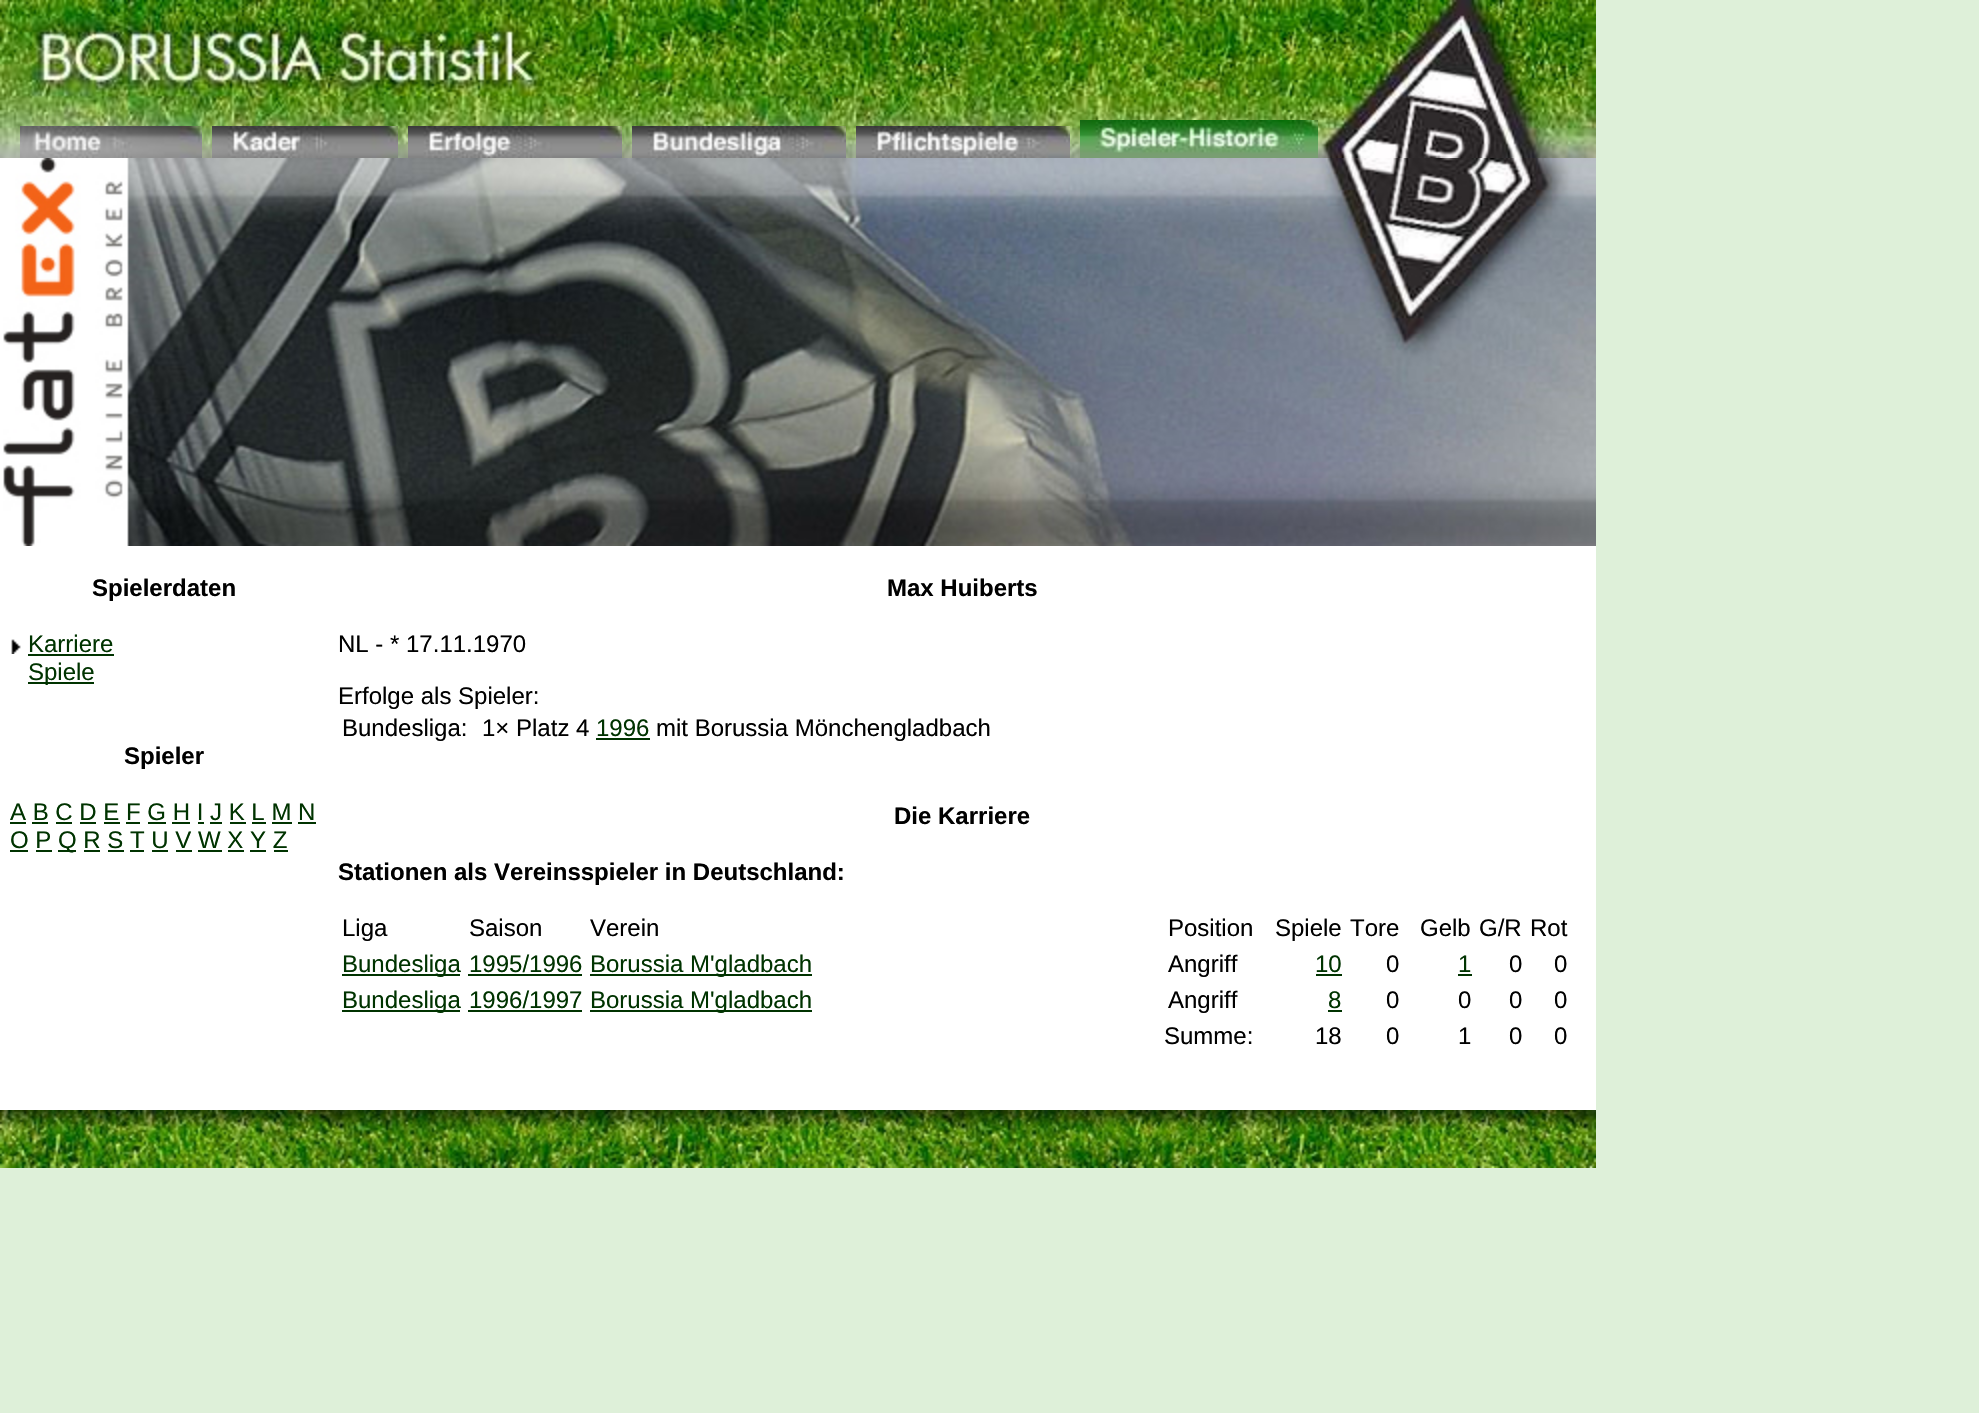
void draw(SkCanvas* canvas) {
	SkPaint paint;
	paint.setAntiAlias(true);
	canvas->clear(0xffdef0d9);
	canvas->drawImageRect(SkImages::DeferredFromEncodedData(SkData::MakeFromFileName("img1.png")), SkRect::MakeXYWH(0, 0, 1596, 158), SkSamplingOptions());
	canvas->drawImageRect(SkImages::DeferredFromEncodedData(SkData::MakeFromFileName("img2.png")), SkRect::MakeXYWH(20, 126, 182, 32), SkSamplingOptions());
	canvas->drawImageRect(SkImages::DeferredFromEncodedData(SkData::MakeFromFileName("img3.png")), SkRect::MakeXYWH(212, 126, 186, 32), SkSamplingOptions());
	canvas->drawImageRect(SkImages::DeferredFromEncodedData(SkData::MakeFromFileName("img4.png")), SkRect::MakeXYWH(408, 126, 214, 32), SkSamplingOptions());
	canvas->drawImageRect(SkImages::DeferredFromEncodedData(SkData::MakeFromFileName("img5.png")), SkRect::MakeXYWH(632, 126, 214, 32), SkSamplingOptions());
	canvas->drawImageRect(SkImages::DeferredFromEncodedData(SkData::MakeFromFileName("img6.png")), SkRect::MakeXYWH(856, 126, 214, 32), SkSamplingOptions());
	canvas->drawImageRect(SkImages::DeferredFromEncodedData(SkData::MakeFromFileName("img7.png")), SkRect::MakeXYWH(1080, 120, 238, 38), SkSamplingOptions());
	paint.setColor(0xffffffff);
	canvas->drawRect(SkRect::MakeXYWH(0, 158, 3, 388), paint);
	canvas->drawImageRect(SkImages::DeferredFromEncodedData(SkData::MakeFromFileName("img8.png")), SkRect::MakeXYWH(3, 158, 1593, 388), SkSamplingOptions());
	canvas->drawRect(SkRect::MakeXYWH(0, 546, 1596, 564), paint);
	SkFont f1(fontMgr->matchFamilyStyle("Liberation Sans", SkFontStyle::Bold()), 24);
	f1.setSubpixel(true);
	paint.setColor(0xff000000);
	canvas->drawString("Spielerdaten", 92, 596, f1, paint);
	canvas->drawImageRect(SkImages::DeferredFromEncodedData(SkData::MakeFromFileName("img9.png")), SkRect::MakeXYWH(11, 639, 10, 15), SkSamplingOptions());
	SkFont f2(fontMgr->matchFamilyStyle("Liberation Sans", SkFontStyle::Normal()), 24);
	f2.setSubpixel(true);
	paint.setColor(0xff003300);
	canvas->drawString("Karriere", 28, 652, f2, paint);
	canvas->drawRect(SkRect::MakeXYWH(28, 654, 86, 2), paint);
	canvas->drawRect(SkRect::MakeXYWH(28, 682, 66, 2), paint);
	canvas->drawString("Spiele", 28, 680, f2, paint);
	paint.setColor(0xff000000);
	canvas->drawString("Spieler", 124, 764, f1, paint);
	paint.setColor(0xff003300);
	canvas->drawString("A B C D E F G H I J K L M N", 10, 820, f2, paint);
	canvas->drawRect(SkRect::MakeXYWH(10, 822, 16, 2), paint);
	canvas->drawRect(SkRect::MakeXYWH(32, 822, 16, 2), paint);
	canvas->drawRect(SkRect::MakeXYWH(56, 822, 16, 2), paint);
	canvas->drawRect(SkRect::MakeXYWH(80, 822, 16, 2), paint);
	canvas->drawRect(SkRect::MakeXYWH(104, 822, 16, 2), paint);
	canvas->drawRect(SkRect::MakeXYWH(126, 822, 14, 2), paint);
	canvas->drawRect(SkRect::MakeXYWH(148, 822, 18, 2), paint);
	canvas->drawRect(SkRect::MakeXYWH(172, 822, 18, 2), paint);
	canvas->drawRect(SkRect::MakeXYWH(198, 822, 6, 2), paint);
	canvas->drawRect(SkRect::MakeXYWH(210, 822, 12, 2), paint);
	canvas->drawRect(SkRect::MakeXYWH(230, 822, 16, 2), paint);
	canvas->drawRect(SkRect::MakeXYWH(252, 822, 14, 2), paint);
	canvas->drawRect(SkRect::MakeXYWH(272, 822, 20, 2), paint);
	canvas->drawRect(SkRect::MakeXYWH(298, 822, 18, 2), paint);
	canvas->drawString("O P", 10, 848, f2, paint);
	canvas->drawRect(SkRect::MakeXYWH(10, 850, 18, 2), paint);
	canvas->drawRect(SkRect::MakeXYWH(58, 850, 18, 2), paint);
	canvas->drawString("Q R S T U V W X Y Z", 58, 848, f2, paint);
	canvas->drawRect(SkRect::MakeXYWH(36, 850, 16, 2), paint);
	canvas->drawRect(SkRect::MakeXYWH(84, 850, 16, 2), paint);
	canvas->drawRect(SkRect::MakeXYWH(108, 850, 16, 2), paint);
	canvas->drawRect(SkRect::MakeXYWH(130, 850, 14, 2), paint);
	canvas->drawRect(SkRect::MakeXYWH(152, 850, 16, 2), paint);
	canvas->drawRect(SkRect::MakeXYWH(176, 850, 16, 2), paint);
	canvas->drawRect(SkRect::MakeXYWH(198, 850, 24, 2), paint);
	canvas->drawRect(SkRect::MakeXYWH(228, 850, 16, 2), paint);
	canvas->drawRect(SkRect::MakeXYWH(250, 850, 16, 2), paint);
	canvas->drawRect(SkRect::MakeXYWH(274, 850, 14, 2), paint);
	paint.setColor(0xff000000);
	canvas->drawString("Max Huiberts", 887, 596, f1, paint);
	canvas->drawString("NL - * 17.11.1970", 338, 652, f2, paint);
	canvas->drawString("Erfolge als Spieler:", 338, 704, f2, paint);
	canvas->drawString("Bundesliga:", 342, 736, f2, paint);
	canvas->drawString("1× Platz 4", 482, 736, f2, paint);
	paint.setColor(0xff003300);
	canvas->drawString("1996", 596, 736, f2, paint);
	canvas->drawRect(SkRect::MakeXYWH(596, 738, 54, 2), paint);
	paint.setColor(0xff000000);
	canvas->drawString("mit Borussia Mönchengladbach", 656, 736, f2, paint);
	canvas->drawString("Die Karriere", 894, 824, f1, paint);
	canvas->drawString("Stationen als Vereinsspieler in Deutschland:", 338, 880, f1, paint);
	canvas->drawString("Liga", 342, 936, f2, paint);
	canvas->drawString("Saison", 469, 936, f2, paint);
	canvas->drawString("Verein", 590, 936, f2, paint);
	canvas->drawString("Position", 1168, 936, f2, paint);
	canvas->drawString("Spiele", 1275, 936, f2, paint);
	canvas->drawString("Tore", 1350, 936, f2, paint);
	canvas->drawString("Gelb", 1420, 936, f2, paint);
	canvas->drawString("G/R", 1479, 936, f2, paint);
	canvas->drawString("Rot", 1530, 936, f2, paint);
	paint.setColor(0xff003300);
	canvas->drawRect(SkRect::MakeXYWH(342, 974, 118, 2), paint);
	canvas->drawString("Bundesliga", 342, 972, f2, paint);
	canvas->drawString("1995/1996", 469, 972, f2, paint);
	canvas->drawRect(SkRect::MakeXYWH(468, 974, 114, 2), paint);
	canvas->drawRect(SkRect::MakeXYWH(590, 974, 222, 2), paint);
	canvas->drawString("Borussia M'gladbach", 590, 972, f2, paint);
	paint.setColor(0xff000000);
	canvas->drawString("Angriff", 1168, 972, f2, paint);
	paint.setColor(0xff003300);
	canvas->drawString("10", 1315, 972, f2, paint);
	canvas->drawRect(SkRect::MakeXYWH(1316, 974, 26, 2), paint);
	paint.setColor(0xff000000);
	canvas->drawString("0", 1386, 972, f2, paint);
	paint.setColor(0xff003300);
	canvas->drawString("1", 1458, 972, f2, paint);
	canvas->drawRect(SkRect::MakeXYWH(1458, 974, 14, 2), paint);
	paint.setColor(0xff000000);
	canvas->drawString("0", 1509, 972, f2, paint);
	canvas->drawString("0", 1554, 972, f2, paint);
	paint.setColor(0xff003300);
	canvas->drawRect(SkRect::MakeXYWH(342, 1010, 118, 2), paint);
	canvas->drawString("Bundesliga", 342, 1008, f2, paint);
	canvas->drawString("1996/1997", 469, 1008, f2, paint);
	canvas->drawRect(SkRect::MakeXYWH(468, 1010, 114, 2), paint);
	canvas->drawRect(SkRect::MakeXYWH(590, 1010, 222, 2), paint);
	canvas->drawString("Borussia M'gladbach", 590, 1008, f2, paint);
	paint.setColor(0xff000000);
	canvas->drawString("Angriff", 1168, 1008, f2, paint);
	paint.setColor(0xff003300);
	canvas->drawString("8", 1328, 1008, f2, paint);
	canvas->drawRect(SkRect::MakeXYWH(1328, 1010, 14, 2), paint);
	paint.setColor(0xff000000);
	canvas->drawString("0", 1386, 1008, f2, paint);
	canvas->drawString("0", 1458, 1008, f2, paint);
	canvas->drawString("0", 1509, 1008, f2, paint);
	canvas->drawString("0", 1554, 1008, f2, paint);
	canvas->drawString("Summe:", 1164, 1044, f2, paint);
	canvas->drawString("18", 1315, 1044, f2, paint);
	canvas->drawString("0", 1386, 1044, f2, paint);
	canvas->drawString("1", 1458, 1044, f2, paint);
	canvas->drawString("0", 1509, 1044, f2, paint);
	canvas->drawString("0", 1554, 1044, f2, paint);
	canvas->drawImageRect(SkImages::DeferredFromEncodedData(SkData::MakeFromFileName("img10.png")), SkRect::MakeXYWH(0, 1110, 1596, 58), SkSamplingOptions());
}
